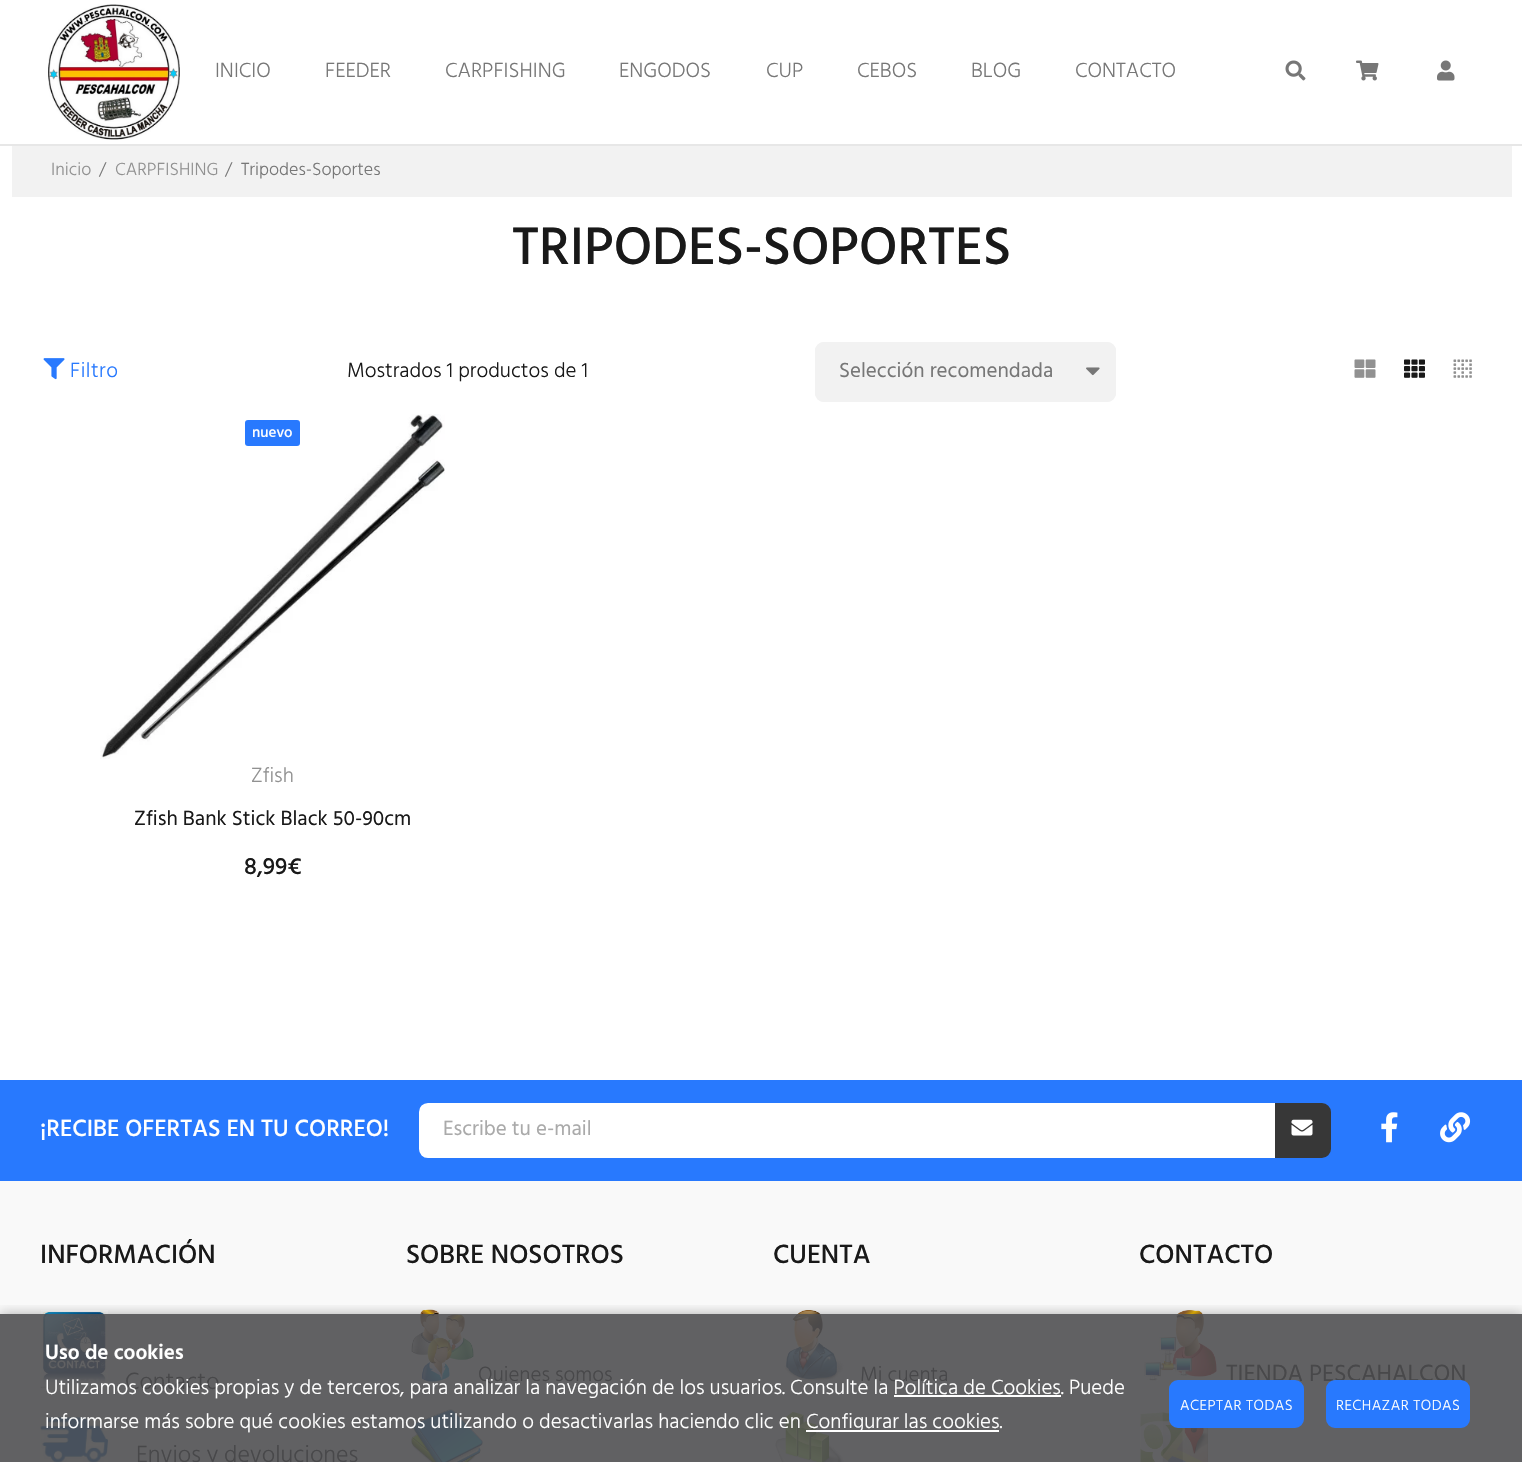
void draw(SkCanvas* canvas) {
	SkPaint paint;
	paint.setAntiAlias(true);
	auto spacedText = [&](const char* s, float x, float y, const SkFont& font, const SkPaint& ink, float letter, float word) {
		std::vector<SkGlyphID> glyphs(font.countText(s, strlen(s), SkTextEncoding::kUTF8));
		std::vector<float> xs(glyphs.size());
		font.textToGlyphs(s, strlen(s), SkTextEncoding::kUTF8, glyphs);
		font.getXPos(glyphs, xs, x);
		float extra = 0;
		for (size_t i = 0; i < glyphs.size(); i++) {
			xs[i] += extra;
			extra += letter + word * (glyphs[i] == font.unicharToGlyph(' '));
		}
		canvas->drawTextBlob(SkTextBlob::MakeFromPosHGlyphs(glyphs, xs, y, font), 0, 0, ink);
	};
	auto svgPath = [&](const char* data, bool evenOdd = false) {
		SkPath result = *SkParsePath::FromSVGString(data);
		if (evenOdd) result.setFillType(SkPathFillType::kEvenOdd);
		return result;
	};
	canvas->clear(0xffffffff);
	paint.setColor(0xffe7e7e7);
	canvas->drawRect(SkRect::MakeXYWH(0, 144, 1522, 2), paint);
	canvas->drawImageRect(SkImages::DeferredFromEncodedData(SkData::MakeFromFileName("img1.png")), SkRect::MakeXYWH(48, 4, 132, 136), SkSamplingOptions());
	SkFont f1(fontMgr->matchFamilyStyle("Hind", SkFontStyle(300, SkFontStyle::kNormal_Width, SkFontStyle::kUpright_Slant)), 21);
	f1.setSubpixel(true);
	paint.setColor(0xff777777);
	canvas->drawString("INICIO", 215, 77, f1, paint);
	canvas->drawString("FEEDER", 325, 77, f1, paint);
	canvas->drawString("CARPFISHING", 445, 77, f1, paint);
	canvas->drawString("ENGODOS", 619, 77, f1, paint);
	canvas->drawString("CUP", 766, 77, f1, paint);
	canvas->drawString("CEBOS", 857, 77, f1, paint);
	canvas->drawString("BLOG", 971, 77, f1, paint);
	canvas->drawString("CONTACTO", 1075, 77, f1, paint);
	canvas->drawImageRect(SkImages::DeferredFromEncodedData(SkData::MakeFromFileName("img2.png")), SkRect::MakeXYWH(1285, 60, 21, 21), SkSamplingOptions());
	canvas->drawImageRect(SkImages::DeferredFromEncodedData(SkData::MakeFromFileName("img3.png")), SkRect::MakeXYWH(1356, 60, 23, 21), SkSamplingOptions());
	canvas->drawImageRect(SkImages::DeferredFromEncodedData(SkData::MakeFromFileName("img4.png")), SkRect::MakeXYWH(1437, 60, 18, 21), SkSamplingOptions());
	paint.setColor(0xfff2f2f2);
	canvas->drawRect(SkRect::MakeXYWH(12, 146, 1500, 51), paint);
	SkFont f2(fontMgr->matchFamilyStyle("Hind", SkFontStyle(300, SkFontStyle::kNormal_Width, SkFontStyle::kUpright_Slant)), 18);
	f2.setSubpixel(true);
	paint.setColor(0xff919191);
	canvas->drawString("Inicio", 51, 175, f2, paint);
	paint.setColor(0xff777777);
	canvas->drawString("/", 99, 175, f2, paint);
	paint.setColor(0xff919191);
	canvas->drawString("CARPFISHING", 115, 175, f2, paint);
	paint.setColor(0xff777777);
	canvas->drawString("/", 225, 175, f2, paint);
	canvas->drawString("Tripodes-Soportes", 241, 175, f2, paint);
	SkFont f3(fontMgr->matchFamilyStyle("Hind", SkFontStyle(500, SkFontStyle::kNormal_Width, SkFontStyle::kUpright_Slant)), 54);
	f3.setSubpixel(true);
	paint.setColor(0xff191919);
	canvas->drawString("TRIPODES-SOPORTES", 512, 264, f3, paint);
	canvas->drawImageRect(SkImages::DeferredFromEncodedData(SkData::MakeFromFileName("img5.png")), SkRect::MakeXYWH(43, 358, 22, 22), SkSamplingOptions());
	paint.setColor(0xff2879fe);
	spacedText("Filtro", 70, 377, f1, paint, 0.5, 0);
	paint.setColor(0xff191919);
	canvas->drawString("Mostrados 1 productos de 1", 347, 377, f1, paint);
	paint.setColor(0xfff2f2f2);
	canvas->drawRoundRect(SkRect::MakeXYWH(815, 342, 301, 60), 9, 9, paint);
	canvas->drawImageRect(SkImages::DeferredFromEncodedData(SkData::MakeFromFileName("img6.png")), SkRect::MakeXYWH(1086, 367, 14, 9), SkSamplingOptions());
	paint.setStroke(true);
	paint.setStrokeWidth(2);
	canvas->drawRoundRect(SkRect::MakeXYWH(816, 343, 299, 58), 8, 8, paint);
	SkFont f4(fontMgr->matchFamilyStyle("Hind", SkFontStyle::Normal()), 21);
	f4.setSubpixel(true);
	paint.setStroke(false);
	paint.setColor(0xff777777);
	canvas->drawString("Selección recomendada", 839, 377, f4, paint);
	canvas->drawImageRect(SkImages::DeferredFromEncodedData(SkData::MakeFromFileName("img7.png")), SkRect::MakeXYWH(1354, 359, 22, 19), SkSamplingOptions());
	canvas->drawImageRect(SkImages::DeferredFromEncodedData(SkData::MakeFromFileName("img8.png")), SkRect::MakeXYWH(1404, 359, 21, 19), SkSamplingOptions());
	canvas->drawImageRect(SkImages::DeferredFromEncodedData(SkData::MakeFromFileName("img9.png")), SkRect::MakeXYWH(1453, 359, 19, 19), SkSamplingOptions());
	canvas->drawImageRect(SkImages::DeferredFromEncodedData(SkData::MakeFromFileName("img10.png")), SkRect::MakeXYWH(100, 414, 345, 345), SkSamplingOptions());
	paint.setColor(0xff2879fe);
	canvas->drawRoundRect(SkRect::MakeXYWH(245, 420, 55, 26), 3, 3, paint);
	SkFont f5(fontMgr->matchFamilyStyle("Hind", SkFontStyle(500, SkFontStyle::kNormal_Width, SkFontStyle::kUpright_Slant)), 15);
	f5.setSubpixel(true);
	paint.setColor(0xffffffff);
	canvas->drawString("nuevo", 252, 437, f5, paint);
	paint.setColor(0xff919191);
	canvas->drawString("Zfish", 251, 782, f1, paint);
	paint.setColor(0xff191919);
	canvas->drawString("Zfish Bank Stick Black 50-90cm", 134, 825, f4, paint);
	SkFont f6(fontMgr->matchFamilyStyle("Hind", SkFontStyle(500, SkFontStyle::kNormal_Width, SkFontStyle::kUpright_Slant)), 24);
	f6.setSubpixel(true);
	canvas->drawString("8,99€", 244, 874, f6, paint);
	paint.setColor(0xff2879fe);
	canvas->drawRect(SkRect::MakeXYWH(0, 1080, 1522, 101), paint);
	paint.setColor(0xffffffff);
	canvas->drawString("¡RECIBE OFERTAS EN TU CORREO!", 40, 1136, f6, paint);
	canvas->drawPath(svgPath("M428 1104H1274V1157H428C423.5 1157 420 1153.5 420 1149V1112C420 1107.5 423.5 1104 428 1104Z"), paint);
	paint.setStroke(true);
	canvas->drawPath(svgPath("M428 1104H1274V1157H428C423.5 1157 420 1153.5 420 1149V1112C420 1107.5 423.5 1104 428 1104Z"), paint);
	paint.setStroke(false);
	paint.setColor(0xffaaaaaa);
	canvas->drawString("Escribe tu e-mail", 443, 1135, f4, paint);
	paint.setColor(0xff373737);
	canvas->drawPath(svgPath("M1276.5 1104.5H1322C1326 1104.5 1329.5 1108 1329.5 1112V1149C1329.5 1153 1326 1156.5 1322 1156.5H1276.5Z"), paint);
	paint.setStroke(true);
	paint.setStrokeWidth(3);
	canvas->drawPath(svgPath("M1276.5 1104.5H1322C1326 1104.5 1329.5 1108 1329.5 1112V1149C1329.5 1153 1326 1156.5 1322 1156.5H1276.5Z"), paint);
	canvas->drawImageRect(SkImages::DeferredFromEncodedData(SkData::MakeFromFileName("img11.png")), SkRect::MakeXYWH(1291, 1119, 22, 17), SkSamplingOptions());
	canvas->drawImageRect(SkImages::DeferredFromEncodedData(SkData::MakeFromFileName("img12.png")), SkRect::MakeXYWH(1381, 1112, 17, 31), SkSamplingOptions());
	canvas->drawImageRect(SkImages::DeferredFromEncodedData(SkData::MakeFromFileName("img13.png")), SkRect::MakeXYWH(1440, 1112, 31, 31), SkSamplingOptions());
	paint.setStroke(false);
	paint.setColor(0xfff9f9f9);
	canvas->drawRect(SkRect::MakeXYWH(0, 1181, 1522, 133), paint);
	paint.setColor(0xff616163);
	canvas->drawRect(SkRect::MakeXYWH(0, 1314, 1522, 148), paint);
	SkFont f7(fontMgr->matchFamilyStyle("Hind", SkFontStyle(500, SkFontStyle::kNormal_Width, SkFontStyle::kUpright_Slant)), 27);
	f7.setSubpixel(true);
	paint.setColor(0xff191919);
	canvas->drawString("INFORMACIÓN", 40, 1263, f7, paint);
	canvas->drawImageRect(SkImages::DeferredFromEncodedData(SkData::MakeFromFileName("img14.png")), SkRect::MakeXYWH(40, 1310, 68, 79), SkSamplingOptions());
	SkFont f8(fontMgr->matchFamilyStyle("Hind", SkFontStyle(300, SkFontStyle::kNormal_Width, SkFontStyle::kUpright_Slant)), 24);
	f8.setSubpixel(true);
	paint.setColor(0xff48484a);
	canvas->drawString("Contacto", 125, 1389, f8, paint);
	canvas->drawImageRect(SkImages::DeferredFromEncodedData(SkData::MakeFromFileName("img15.png")), SkRect::MakeXYWH(40, 1417, 68, 45), SkSamplingOptions());
	canvas->drawString("Envios y devoluciones", 136, 1462, f8, paint);
	paint.setColor(0xff191919);
	canvas->drawString("SOBRE NOSOTROS", 406, 1263, f7, paint);
	canvas->drawImageRect(SkImages::DeferredFromEncodedData(SkData::MakeFromFileName("img16.png")), SkRect::MakeXYWH(411, 1309, 63, 73), SkSamplingOptions());
	paint.setColor(0xff48484a);
	canvas->drawString("Quienes somos", 478, 1381, f1, paint);
	canvas->drawImageRect(SkImages::DeferredFromEncodedData(SkData::MakeFromFileName("img17.png")), SkRect::MakeXYWH(411, 1409, 72, 53), SkSamplingOptions());
	paint.setColor(0xff191919);
	canvas->drawString("CUENTA", 773, 1263, f7, paint);
	canvas->drawImageRect(SkImages::DeferredFromEncodedData(SkData::MakeFromFileName("img18.png")), SkRect::MakeXYWH(784, 1310, 60, 71), SkSamplingOptions());
	paint.setColor(0xff48484a);
	canvas->drawString("Mi cuenta", 860, 1381, f1, paint);
	canvas->drawImageRect(SkImages::DeferredFromEncodedData(SkData::MakeFromFileName("img19.png")), SkRect::MakeXYWH(775, 1412, 69, 50), SkSamplingOptions());
	paint.setColor(0xff191919);
	canvas->drawString("CONTACTO", 1139, 1263, f7, paint);
	canvas->drawImageRect(SkImages::DeferredFromEncodedData(SkData::MakeFromFileName("img20.png")), SkRect::MakeXYWH(1144, 1310, 73, 71), SkSamplingOptions());
	SkFont f9(fontMgr->matchFamilyStyle("Hind", SkFontStyle::Normal()), 24);
	f9.setSubpixel(true);
	paint.setColor(0xff48484a);
	canvas->drawString("TIENDA PESCAHALCON", 1226, 1381, f9, paint);
	canvas->drawImageRect(SkImages::DeferredFromEncodedData(SkData::MakeFromFileName("img21.png")), SkRect::MakeXYWH(1140, 1412, 69, 50), SkSamplingOptions());
	canvas->save();
	canvas->clipRect(SkRect::MakeXYWH(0, 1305, 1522, 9));
	paint.setColor(0x4d000000);
	paint.setMaskFilter(SkMaskFilter::MakeBlur(kNormal_SkBlurStyle, 6));
	canvas->drawRect(SkRect::MakeXYWH(0, 1314, 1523, 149), paint);
	paint.setMaskFilter(nullptr);
	canvas->restore();
	SkFont f10(fontMgr->matchFamilyStyle("Hind", SkFontStyle(600, SkFontStyle::kNormal_Width, SkFontStyle::kUpright_Slant)), 21);
	f10.setSubpixel(true);
	paint.setColor(0xffffffff);
	canvas->drawString("Uso de cookies", 45, 1359, f10, paint);
	canvas->drawString("Utilizamos cookies propias y de terceros, para analizar la navegación de los usuarios. Consulte la Política de Cookies. Puede", 45, 1394, f1, paint);
	canvas->drawRect(SkRect::MakeXYWH(894, 1395, 167, 2), paint);
	canvas->drawString("informarse más sobre qué cookies estamos utilizando o desactivarlas haciendo clic en", 45, 1428, f1, paint);
	canvas->drawRect(SkRect::MakeXYWH(806, 1430, 193, 2), paint);
	canvas->drawString("Configurar las cookies.", 806, 1428, f1, paint);
	paint.setColor(0xff2879fe);
	canvas->drawRoundRect(SkRect::MakeXYWH(1170.5, 1381.5, 132, 45), 7.5, 7.5, paint);
	paint.setStroke(true);
	canvas->drawRoundRect(SkRect::MakeXYWH(1170.5, 1381.5, 132, 45), 7.5, 7.5, paint);
	SkFont f11(fontMgr->matchFamilyStyle("Hind", SkFontStyle(300, SkFontStyle::kNormal_Width, SkFontStyle::kUpright_Slant)), 15);
	f11.setSubpixel(true);
	paint.setStroke(false);
	paint.setColor(0xffffffff);
	spacedText("ACEPTAR TODAS", 1180, 1410, f11, paint, 0.5, 0);
	paint.setColor(0xff2879fe);
	canvas->drawRoundRect(SkRect::MakeXYWH(1327.5, 1381.5, 141, 45), 7.5, 7.5, paint);
	paint.setStroke(true);
	canvas->drawRoundRect(SkRect::MakeXYWH(1327.5, 1381.5, 141, 45), 7.5, 7.5, paint);
	paint.setStroke(false);
	paint.setColor(0xffffffff);
	spacedText("RECHAZAR TODAS", 1336, 1410, f11, paint, 0.5, 0);
}
